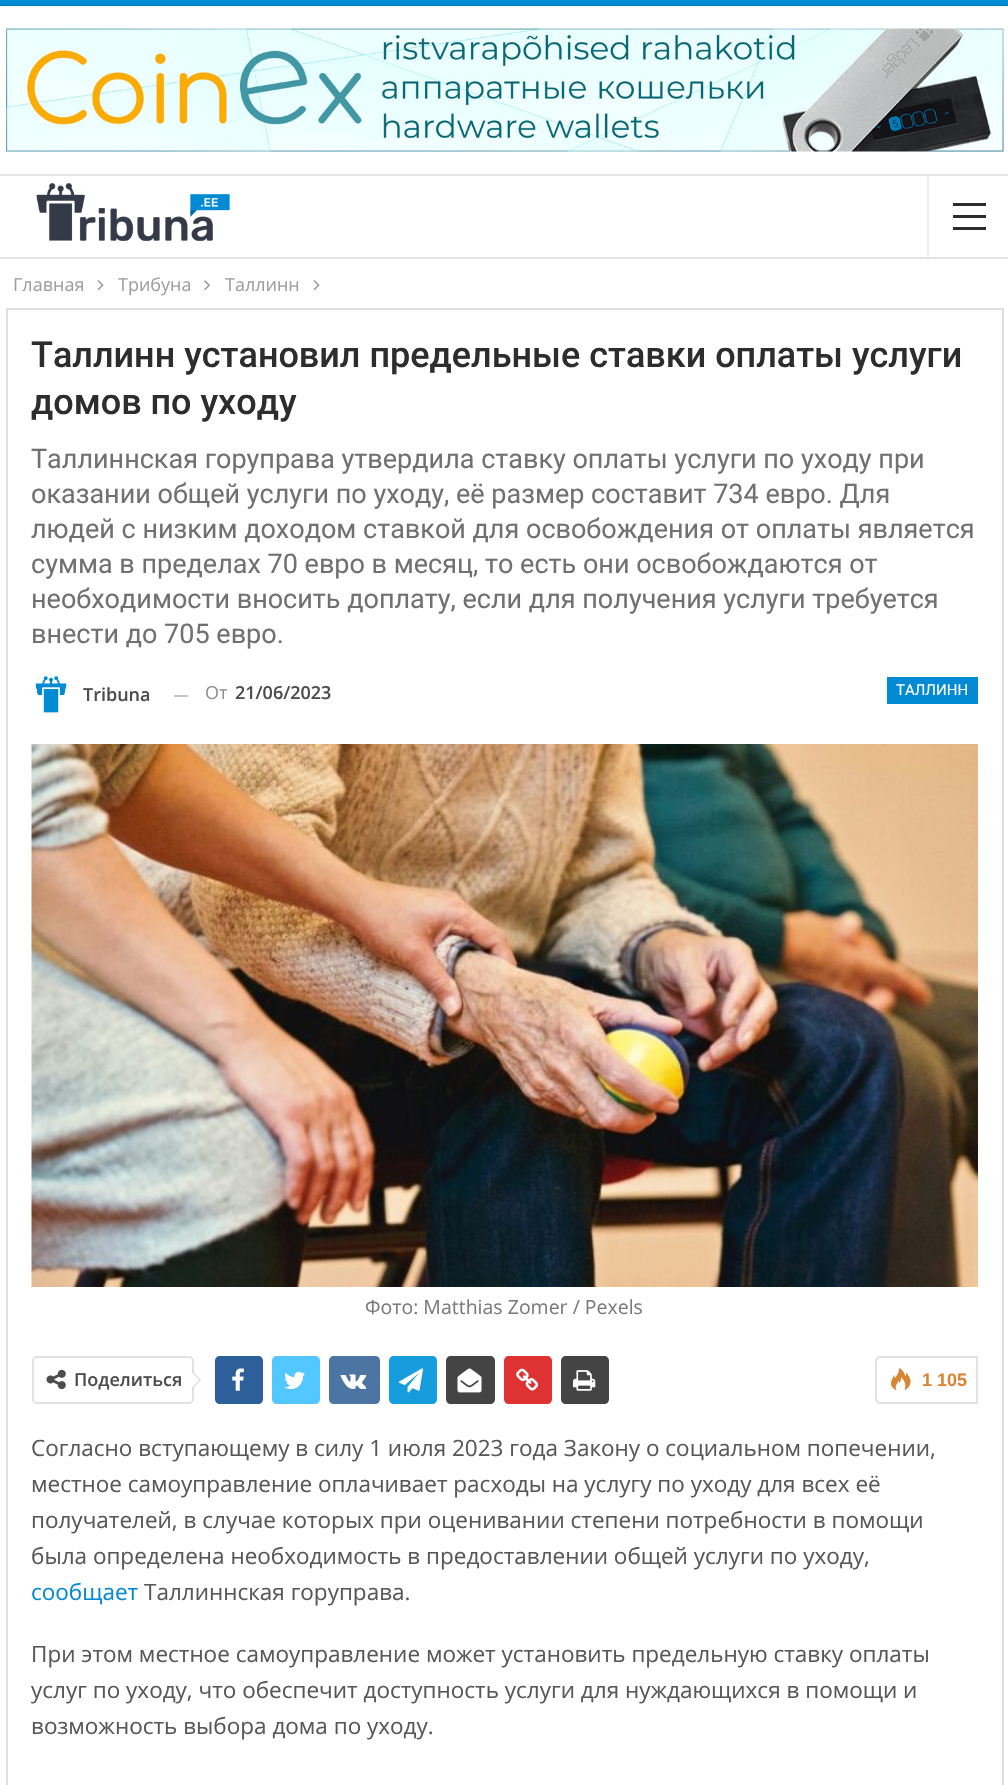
void draw(SkCanvas* canvas) {
	SkPaint paint;
	paint.setAntiAlias(true);
	auto svgPath = [&](const char* data, bool evenOdd = false) {
		SkPath result = *SkParsePath::FromSVGString(data);
		if (evenOdd) result.setFillType(SkPathFillType::kEvenOdd);
		return result;
	};
	canvas->clear(0xff028bd4);
	paint.setColor(0x45000000);
	paint.setMaskFilter(SkMaskFilter::MakeBlur(kNormal_SkBlurStyle, 1.5));
	canvas->drawRect(SkRect::MakeXYWH(0, 6, 1008, 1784), paint);
	paint.setMaskFilter(nullptr);
	paint.setColor(0xffffffff);
	canvas->drawRect(SkRect::MakeXYWH(0, 6, 1008, 1779), paint);
	canvas->drawImageRect(SkImages::DeferredFromEncodedData(SkData::MakeFromFileName("img1.png")), SkRect::MakeXYWH(6, 28, 998, 124), SkSamplingOptions());
	paint.setColor(0xffe5e5e5);
	canvas->drawRect(SkRect::MakeXYWH(0, 174, 1008, 2), paint);
	canvas->drawRect(SkRect::MakeXYWH(0, 257, 1008, 2), paint);
	canvas->drawImageRect(SkImages::DeferredFromEncodedData(SkData::MakeFromFileName("img2.png")), SkRect::MakeXYWH(36, 183, 194, 58), SkSamplingOptions());
	paint.setColor(0xffededed);
	canvas->drawRect(SkRect::MakeXYWH(927, 176, 2, 81), paint);
	paint.setColor(0xff2c2c2c);
	canvas->drawRect(SkRect::MakeXYWH(953, 215, 33, 3), paint);
	canvas->drawRect(SkRect::MakeXYWH(953, 203, 33, 3), paint);
	canvas->drawRect(SkRect::MakeXYWH(953, 227, 33, 3), paint);
	SkFont f1(fontMgr->matchFamilyStyle("Open Sans", SkFontStyle::Normal()), 18);
	f1.setSubpixel(true);
	paint.setColor(0xff9e9e9e);
	canvas->drawString("Главная", 13, 291, f1, paint);
	canvas->drawImageRect(SkImages::DeferredFromEncodedData(SkData::MakeFromFileName("img3.png")), SkRect::MakeXYWH(97, 280, 7, 11), SkSamplingOptions());
	canvas->drawString("Трибуна", 118, 291, f1, paint);
	canvas->drawImageRect(SkImages::DeferredFromEncodedData(SkData::MakeFromFileName("img4.png")), SkRect::MakeXYWH(204, 280, 6, 11), SkSamplingOptions());
	canvas->drawString("Таллинн", 225, 291, f1, paint);
	canvas->drawImageRect(SkImages::DeferredFromEncodedData(SkData::MakeFromFileName("img3.png")), SkRect::MakeXYWH(313, 280, 7, 11), SkSamplingOptions());
	paint.setStroke(true);
	paint.setStrokeWidth(2);
	paint.setColor(0xffdedede);
	canvas->drawRect(SkRect::MakeXYWH(7, 309, 996, 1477), paint);
	SkFont f2(fontMgr->matchFamilyStyle("Roboto", SkFontStyle(500, SkFontStyle::kNormal_Width, SkFontStyle::kUpright_Slant)), 36);
	f2.setSubpixel(true);
	paint.setStroke(false);
	paint.setColor(0xff2d2d2d);
	canvas->drawString("Таллинн установил предельные ставки оплаты услуги", 31, 367, f2, paint);
	canvas->drawString("домов по уходу", 31, 414, f2, paint);
	SkFont f3(fontMgr->matchFamilyStyle("Roboto", SkFontStyle::Normal()), 27);
	f3.setSubpixel(true);
	paint.setColor(0xff717171);
	canvas->drawString("Таллиннская горуправа утвердила ставку оплаты услуги по уходу при", 31, 468, f3, paint);
	canvas->drawString("оказании общей услуги по уходу, её размер составит 734 евро. Для", 31, 503, f3, paint);
	canvas->drawString("людей с низким доходом ставкой для освобождения от оплаты является", 31, 538, f3, paint);
	canvas->drawString("сумма в пределах 70 евро в месяц, то есть они освобождаются от", 31, 573, f3, paint);
	canvas->drawString("необходимости вносить доплату, если для получения услуги требуется", 31, 608, f3, paint);
	canvas->drawString("внести до 705 евро.", 31, 643, f3, paint);
	canvas->drawImageRect(SkImages::DeferredFromEncodedData(SkData::MakeFromFileName("img5.png")), SkRect::MakeXYWH(35, 675, 32, 38), SkSamplingOptions());
	SkFont f4(fontMgr->matchFamilyStyle("Open Sans", SkFontStyle(600, SkFontStyle::kNormal_Width, SkFontStyle::kUpright_Slant)), 18);
	f4.setSubpixel(true);
	paint.setColor(0xff4d4d4d);
	canvas->drawString("Tribuna", 83, 701, f4, paint);
	paint.setColor(0xffc4c4c4);
	canvas->drawRect(SkRect::MakeXYWH(174, 695, 14, 2), paint);
	paint.setColor(0xff8f8f8f);
	canvas->drawString("От", 205, 699, f1, paint);
	paint.setColor(0xff4d4d4d);
	canvas->drawString("21/06/2023", 235, 699, f4, paint);
	paint.setColor(0xff028bd4);
	canvas->drawRect(SkRect::MakeXYWH(887, 677, 91, 27), paint);
	SkFont f5(fontMgr->matchFamilyStyle("Roboto", SkFontStyle::Normal()), 15);
	f5.setSubpixel(true);
	paint.setColor(0xffffffff);
	canvas->drawString("ТАЛЛИНН", 896, 695, f5, paint);
	canvas->drawImageRect(SkImages::DeferredFromEncodedData(SkData::MakeFromFileName("img6.png")), SkRect::MakeXYWH(31, 744, 947, 543), SkSamplingOptions());
	SkFont f6(fontMgr->matchFamilyStyle("Open Sans", SkFontStyle::Normal()), 19.5);
	f6.setSubpixel(true);
	paint.setColor(0xff7b7b7b);
	canvas->drawString("Фото: Matthias Zomer / Pexels", 365, 1314, f6, paint);
	paint.setStroke(true);
	paint.setColor(0xffe2e2e2);
	canvas->drawRoundRect(SkRect::MakeXYWH(33, 1357, 160, 46), 4, 4, paint);
	canvas->drawImageRect(SkImages::DeferredFromEncodedData(SkData::MakeFromFileName("img7.png")), SkRect::MakeXYWH(46, 1369, 20, 21), SkSamplingOptions());
	paint.setStroke(false);
	paint.setColor(0xffd7d7d7);
	canvas->drawPath(svgPath("M192 1389V1371L201 1380Z"), paint);
	paint.setColor(0xff4d4d4d);
	canvas->drawString("Поделиться", 74, 1386, f4, paint);
	paint.setColor(0xffffffff);
	canvas->drawPath(svgPath("M192 1387.5V1372.5L199.5 1380Z"), paint);
	canvas->save();
	canvas->clipPath(svgPath("M220 1356H258C261 1356 263 1358 263 1361V1399C263 1402 261 1404 258 1404H220C217 1404 215 1402 215 1399V1361C215 1358 217 1356 220 1356Z"), true);
	paint.setColor(0xff2d5f9a);
	canvas->drawRect(SkRect::MakeXYWH(215, 1358, 46, 45), paint);
	canvas->drawRect(SkRect::MakeXYWH(215, 1356, 48, 2), paint);
	canvas->drawRect(SkRect::MakeXYWH(261, 1356, 2, 48), paint);
	canvas->drawRect(SkRect::MakeXYWH(215, 1403, 48, 1), paint);
	canvas->restore();
	canvas->drawImageRect(SkImages::DeferredFromEncodedData(SkData::MakeFromFileName("img8.png")), SkRect::MakeXYWH(232, 1368, 12, 23), SkSamplingOptions());
	canvas->save();
	canvas->clipPath(svgPath("M277 1356H315C318 1356 320 1358 320 1361V1399C320 1402 318 1404 315 1404H277C274 1404 272 1402 272 1399V1361C272 1358 274 1356 277 1356Z"), true);
	paint.setColor(0xff53c7ff);
	canvas->drawRect(SkRect::MakeXYWH(272, 1358, 46, 45), paint);
	canvas->drawRect(SkRect::MakeXYWH(272, 1356, 48, 2), paint);
	canvas->drawRect(SkRect::MakeXYWH(318, 1356, 2, 48), paint);
	canvas->drawRect(SkRect::MakeXYWH(272, 1403, 48, 1), paint);
	canvas->restore();
	canvas->drawImageRect(SkImages::DeferredFromEncodedData(SkData::MakeFromFileName("img9.png")), SkRect::MakeXYWH(284, 1371, 21, 18), SkSamplingOptions());
	canvas->save();
	canvas->clipPath(svgPath("M334 1356H375C378 1356 380 1358 380 1361V1399C380 1402 378 1404 375 1404H334C331 1404 329 1402 329 1399V1361C329 1358 331 1356 334 1356Z"), true);
	paint.setColor(0xff4c75a3);
	canvas->drawRect(SkRect::MakeXYWH(329, 1358, 49, 45), paint);
	canvas->drawRect(SkRect::MakeXYWH(329, 1356, 51, 2), paint);
	canvas->drawRect(SkRect::MakeXYWH(378, 1356, 2, 48), paint);
	canvas->drawRect(SkRect::MakeXYWH(329, 1403, 51, 1), paint);
	canvas->restore();
	canvas->drawImageRect(SkImages::DeferredFromEncodedData(SkData::MakeFromFileName("img10.png")), SkRect::MakeXYWH(340, 1374, 27, 15), SkSamplingOptions());
	canvas->save();
	canvas->clipPath(svgPath("M394 1356H432C435 1356 437 1358 437 1361V1399C437 1402 435 1404 432 1404H394C391 1404 389 1402 389 1399V1361C389 1358 391 1356 394 1356Z"), true);
	paint.setColor(0xff179cde);
	canvas->drawRect(SkRect::MakeXYWH(389, 1358, 46, 45), paint);
	canvas->drawRect(SkRect::MakeXYWH(389, 1356, 48, 2), paint);
	canvas->drawRect(SkRect::MakeXYWH(435, 1356, 2, 48), paint);
	canvas->drawRect(SkRect::MakeXYWH(389, 1403, 48, 1), paint);
	canvas->restore();
	canvas->drawImageRect(SkImages::DeferredFromEncodedData(SkData::MakeFromFileName("img11.png")), SkRect::MakeXYWH(399, 1368, 24, 25), SkSamplingOptions());
	canvas->save();
	canvas->clipPath(svgPath("M451 1356H490C493 1356 495 1358 495 1361V1399C495 1402 493 1404 490 1404H451C448 1404 446 1402 446 1399V1361C446 1358 448 1356 451 1356Z"), true);
	paint.setColor(0xff444444);
	canvas->drawRect(SkRect::MakeXYWH(446, 1358, 48, 45), paint);
	canvas->drawRect(SkRect::MakeXYWH(446, 1356, 49, 2), paint);
	canvas->drawRect(SkRect::MakeXYWH(494, 1356, 1, 48), paint);
	canvas->drawRect(SkRect::MakeXYWH(446, 1403, 49, 1), paint);
	canvas->restore();
	canvas->drawImageRect(SkImages::DeferredFromEncodedData(SkData::MakeFromFileName("img12.png")), SkRect::MakeXYWH(457, 1368, 25, 25), SkSamplingOptions());
	canvas->save();
	canvas->clipPath(svgPath("M509 1356H547C550 1356 552 1358 552 1361V1399C552 1402 550 1404 547 1404H509C506 1404 504 1402 504 1399V1361C504 1358 506 1356 509 1356Z"), true);
	paint.setColor(0xffdd3333);
	canvas->drawRect(SkRect::MakeXYWH(504, 1358, 47, 45), paint);
	canvas->drawRect(SkRect::MakeXYWH(504, 1356, 48, 2), paint);
	canvas->drawRect(SkRect::MakeXYWH(551, 1356, 1, 48), paint);
	canvas->drawRect(SkRect::MakeXYWH(504, 1403, 48, 1), paint);
	canvas->restore();
	canvas->drawImageRect(SkImages::DeferredFromEncodedData(SkData::MakeFromFileName("img13.png")), SkRect::MakeXYWH(516, 1368, 23, 23), SkSamplingOptions());
	canvas->save();
	canvas->clipPath(svgPath("M566 1356H604C607 1356 609 1358 609 1361V1399C609 1402 607 1404 604 1404H566C563 1404 561 1402 561 1399V1361C561 1358 563 1356 566 1356Z"), true);
	paint.setColor(0xff444444);
	canvas->drawRect(SkRect::MakeXYWH(561, 1358, 47, 45), paint);
	canvas->drawRect(SkRect::MakeXYWH(561, 1356, 48, 2), paint);
	canvas->drawRect(SkRect::MakeXYWH(608, 1356, 1, 48), paint);
	canvas->drawRect(SkRect::MakeXYWH(561, 1403, 48, 1), paint);
	canvas->restore();
	canvas->drawImageRect(SkImages::DeferredFromEncodedData(SkData::MakeFromFileName("img14.png")), SkRect::MakeXYWH(573, 1370, 23, 21), SkSamplingOptions());
	paint.setStroke(true);
	paint.setColor(0xffe2e2e2);
	canvas->drawPath(svgPath("M880 1357H977V1403H880C878 1403 876 1401 876 1399V1361C876 1359 878 1357 880 1357Z"), paint);
	canvas->drawImageRect(SkImages::DeferredFromEncodedData(SkData::MakeFromFileName("img15.png")), SkRect::MakeXYWH(891, 1368, 20, 23), SkSamplingOptions());
	SkFont f7(fontMgr->matchFamilyStyle("Liberation Sans", SkFontStyle::Bold()), 18);
	f7.setSubpixel(true);
	paint.setStroke(false);
	paint.setColor(0xffd88531);
	canvas->drawString("1 105", 922, 1386, f7, paint);
	SkFont f8(fontMgr->matchFamilyStyle("Open Sans", SkFontStyle::Normal()), 22.5);
	f8.setSubpixel(true);
	paint.setColor(0xff585858);
	canvas->drawString("Согласно вступающему в силу 1 июля 2023 года Закону о социальном попечении,", 31, 1456, f8, paint);
	canvas->drawString("местное самоуправление оплачивает расходы на услугу по уходу для всех её", 31, 1492, f8, paint);
	canvas->drawString("получателей, в случае которых при оценивании степени потребности в помощи", 31, 1528, f8, paint);
	canvas->drawString("была определена необходимость в предоставлении общей услуги по уходу,", 31, 1564, f8, paint);
	paint.setColor(0xff028bd4);
	canvas->drawString("сообщает", 31, 1600, f8, paint);
	paint.setColor(0xff585858);
	canvas->drawString("Таллиннская горуправа.", 144, 1600, f8, paint);
	canvas->drawString("При этом местное самоуправление может установить предельную ставку оплаты", 31, 1662, f8, paint);
	canvas->drawString("услуг по уходу, что обеспечит доступность услуги для нуждающихся в помощи и", 31, 1698, f8, paint);
	canvas->drawString("возможность выбора дома по уходу.", 31, 1734, f8, paint);
}
